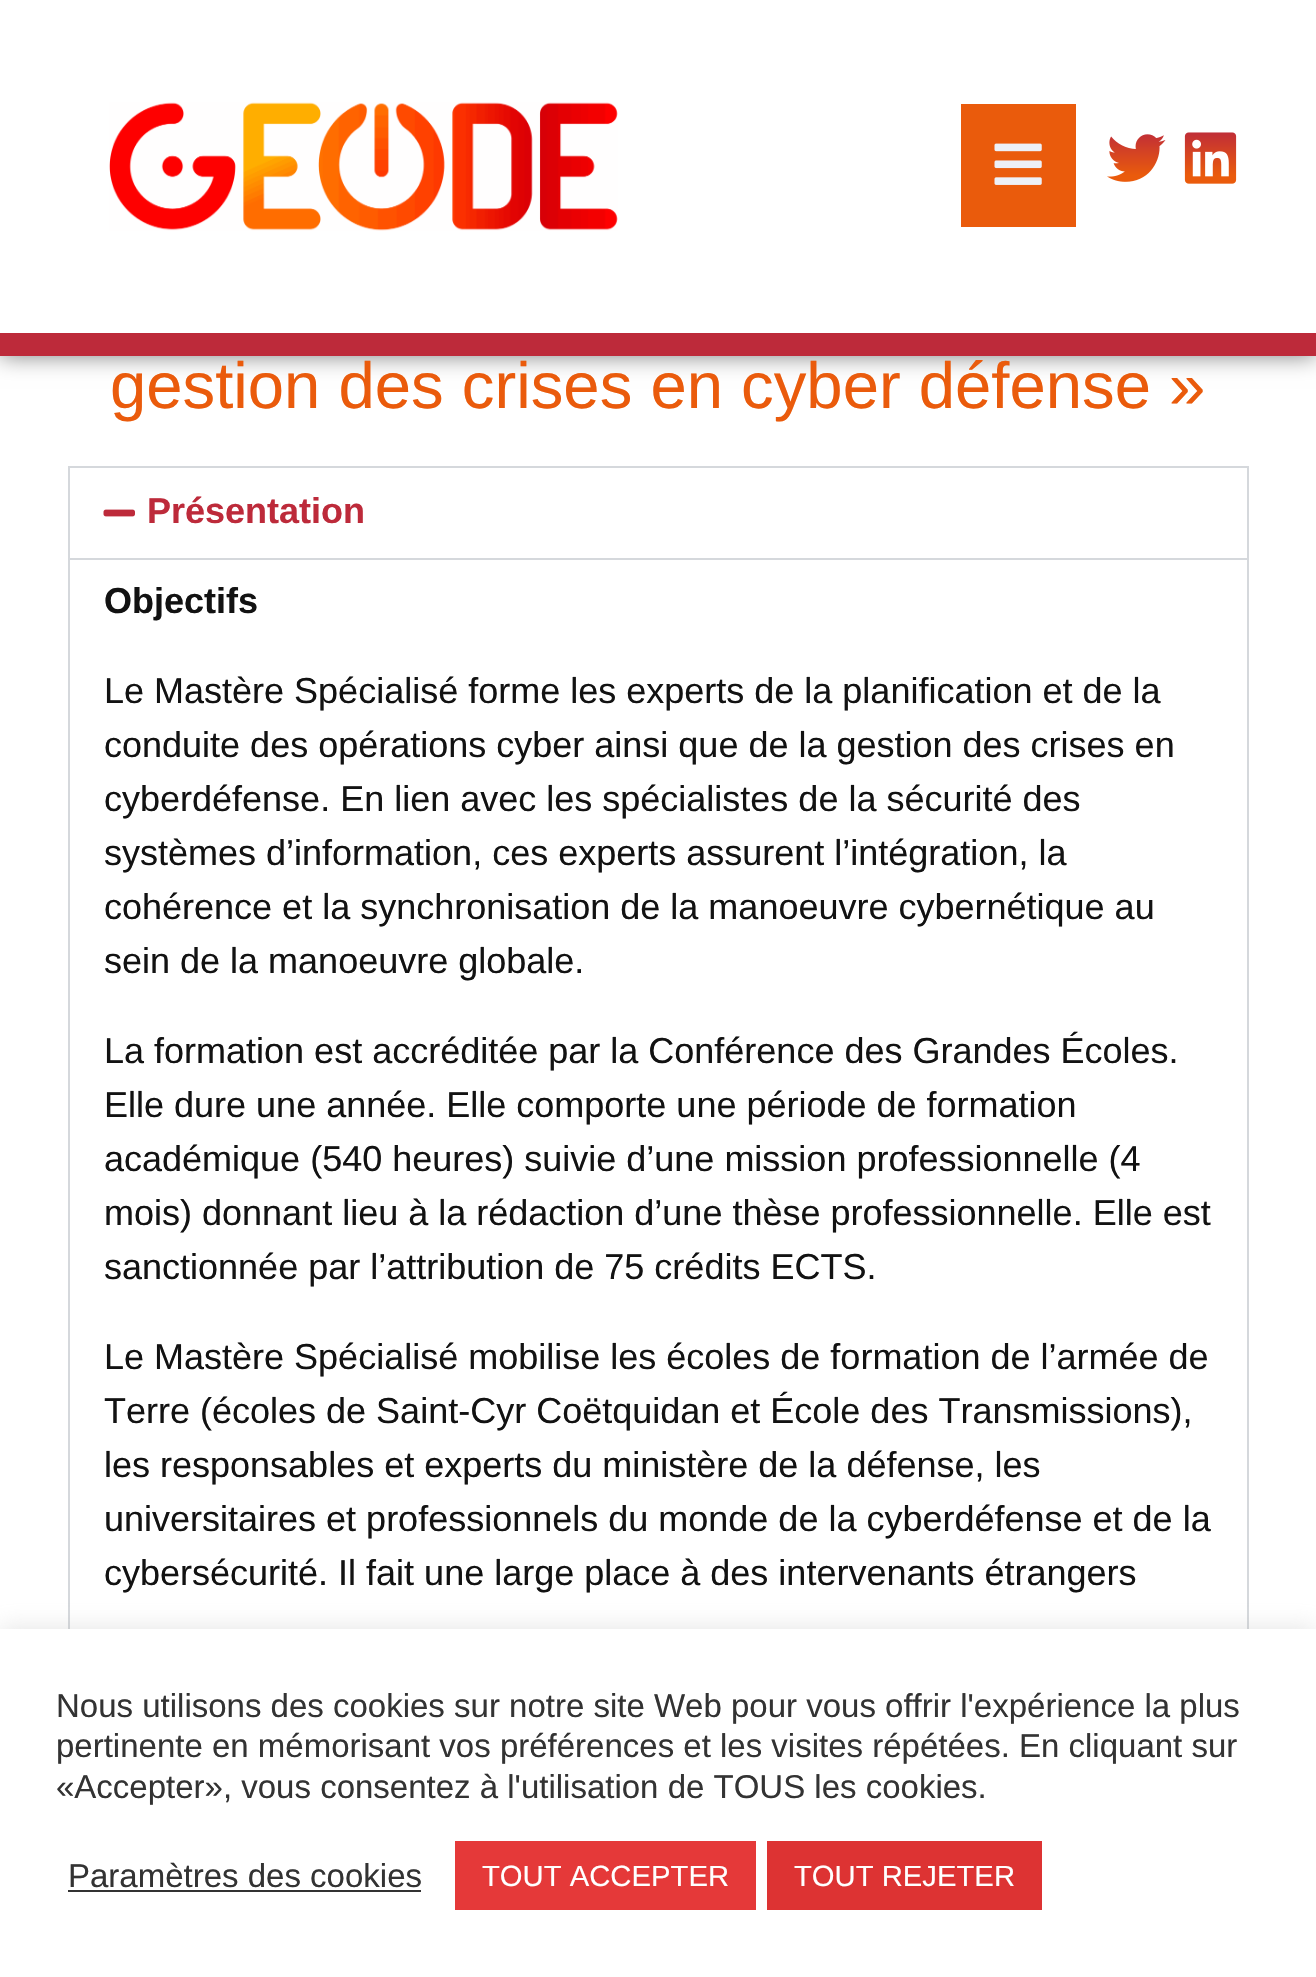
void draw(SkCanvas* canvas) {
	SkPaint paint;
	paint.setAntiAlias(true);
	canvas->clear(0xffffffff);
	paint.setColor(0x80000000);
	paint.setMaskFilter(SkMaskFilter::MakeBlur(kNormal_SkBlurStyle, 11));
	canvas->drawRect(SkRect::MakeXYWH(0, 0, 1316, 356), paint);
	paint.setMaskFilter(nullptr);
	paint.setColor(0xffffffff);
	canvas->drawRect(SkRect::MakeXYWH(0, 0, 1316, 333), paint);
	paint.setColor(0xffbd2a3a);
	canvas->drawRect(SkRect::MakeXYWH(0, 333, 1316, 23), paint);
	canvas->drawImageRect(SkImages::DeferredFromEncodedData(SkData::MakeFromFileName("img1.png")), SkRect::MakeXYWH(109, 102, 509, 129), SkSamplingOptions());
	paint.setColor(0xffea5b0c);
	canvas->drawRect(SkRect::MakeXYWH(961, 104, 115, 123), paint);
	canvas->drawImageRect(SkImages::DeferredFromEncodedData(SkData::MakeFromFileName("img2.png")), SkRect::MakeXYWH(994, 143, 48, 42), SkSamplingOptions());
	canvas->drawImageRect(SkImages::DeferredFromEncodedData(SkData::MakeFromFileName("img3.png")), SkRect::MakeXYWH(1107, 134, 59, 48), SkSamplingOptions());
	canvas->drawImageRect(SkImages::DeferredFromEncodedData(SkData::MakeFromFileName("img4.png")), SkRect::MakeXYWH(1184, 132, 53, 52), SkSamplingOptions());
	SkFont f1(fontMgr->matchFamilyStyle("Liberation Sans", SkFontStyle::Normal()), 65.25);
	f1.setSubpixel(true);
	canvas->drawString("gestion des crises en cyber défense »", 110, 408, f1, paint);
	paint.setStroke(true);
	paint.setStrokeWidth(2);
	paint.setColor(0xffd5d8dc);
	canvas->drawRect(SkRect::MakeXYWH(69, 467, 1179, 1242), paint);
	canvas->drawImageRect(SkImages::DeferredFromEncodedData(SkData::MakeFromFileName("img5.png")), SkRect::MakeXYWH(103, 509, 32, 8), SkSamplingOptions());
	SkFont f2(fontMgr->matchFamilyStyle("Liberation Sans", SkFontStyle::Bold()), 36);
	f2.setSubpixel(true);
	paint.setStroke(false);
	paint.setColor(0xffbd2a3a);
	canvas->drawString("Présentation", 147, 523, f2, paint);
	paint.setColor(0xffd5d8dc);
	canvas->drawRect(SkRect::MakeXYWH(70, 558, 1177, 2), paint);
	paint.setColor(0xff121212);
	canvas->drawString("Objectifs", 104, 613, f2, paint);
	SkFont f3(fontMgr->matchFamilyStyle("Liberation Sans", SkFontStyle::Normal()), 36);
	f3.setSubpixel(true);
	canvas->drawString("Le Mastère Spécialisé forme les experts de la planification et de la", 104, 703, f3, paint);
	canvas->drawString("conduite des opérations cyber ainsi que de la gestion des crises en", 104, 757, f3, paint);
	canvas->drawString("cyberdéfense. En lien avec les spécialistes de la sécurité des", 104, 811, f3, paint);
	canvas->drawString("systèmes d’information, ces experts assurent l’intégration, la", 104, 865, f3, paint);
	canvas->drawString("cohérence et la synchronisation de la manoeuvre cybernétique au", 104, 919, f3, paint);
	canvas->drawString("sein de la manoeuvre globale.", 104, 973, f3, paint);
	canvas->drawString("La formation est accréditée par la Conférence des Grandes Écoles.", 104, 1063, f3, paint);
	canvas->drawString("Elle dure une année. Elle comporte une période de formation", 104, 1117, f3, paint);
	canvas->drawString("académique (540 heures) suivie d’une mission professionnelle (4", 104, 1171, f3, paint);
	canvas->drawString("mois) donnant lieu à la rédaction d’une thèse professionnelle. Elle est", 104, 1225, f3, paint);
	canvas->drawString("sanctionnée par l’attribution de 75 crédits ECTS.", 104, 1279, f3, paint);
	canvas->drawString("Le Mastère Spécialisé mobilise les écoles de formation de l’armée de", 104, 1369, f3, paint);
	canvas->drawString("Terre (écoles de Saint-Cyr Coëtquidan et École des Transmissions),", 104, 1423, f3, paint);
	canvas->drawString("les responsables et experts du ministère de la défense, les", 104, 1477, f3, paint);
	canvas->drawString("universitaires et professionnels du monde de la cyberdéfense et de la", 104, 1531, f3, paint);
	canvas->drawString("cybersécurité. Il fait une large place à des intervenants étrangers", 104, 1585, f3, paint);
	paint.setColor(0x4dacabab);
	paint.setMaskFilter(SkMaskFilter::MakeBlur(kNormal_SkBlurStyle, 11));
	canvas->drawRect(SkRect::MakeXYWH(0, 1627, 1316, 349), paint);
	paint.setMaskFilter(nullptr);
	paint.setColor(0xffffffff);
	canvas->drawRect(SkRect::MakeXYWH(0, 1629, 1316, 348), paint);
	SkFont f4(fontMgr->matchFamilyStyle("Liberation Sans", SkFontStyle::Normal()), 33);
	f4.setSubpixel(true);
	paint.setColor(0xff333333);
	canvas->drawString("Nous utilisons des cookies sur notre site Web pour vous offrir l'expérience la plus", 56, 1717, f4, paint);
	canvas->drawString("pertinente en mémorisant vos préférences et les visites répétées. En cliquant sur", 56, 1757, f4, paint);
	canvas->drawString("«Accepter», vous consentez à l'utilisation de TOUS les cookies.", 56, 1798, f4, paint);
	canvas->drawString("Paramètres des cookies", 68, 1887, f4, paint);
	canvas->drawRect(SkRect::MakeXYWH(68, 1890, 353, 2), paint);
	paint.setColor(0xffe53939);
	canvas->drawRect(SkRect::MakeXYWH(455, 1841, 301, 69), paint);
	SkFont f5(fontMgr->matchFamilyStyle("Liberation Sans", SkFontStyle::Normal()), 29.25);
	f5.setSubpixel(true);
	paint.setColor(0xffffffff);
	canvas->drawString("TOUT ACCEPTER", 482, 1886, f5, paint);
	paint.setColor(0xffdd3333);
	canvas->drawRect(SkRect::MakeXYWH(767, 1841, 275, 69), paint);
	paint.setColor(0xffffffff);
	canvas->drawString("TOUT REJETER", 794, 1886, f5, paint);
}
